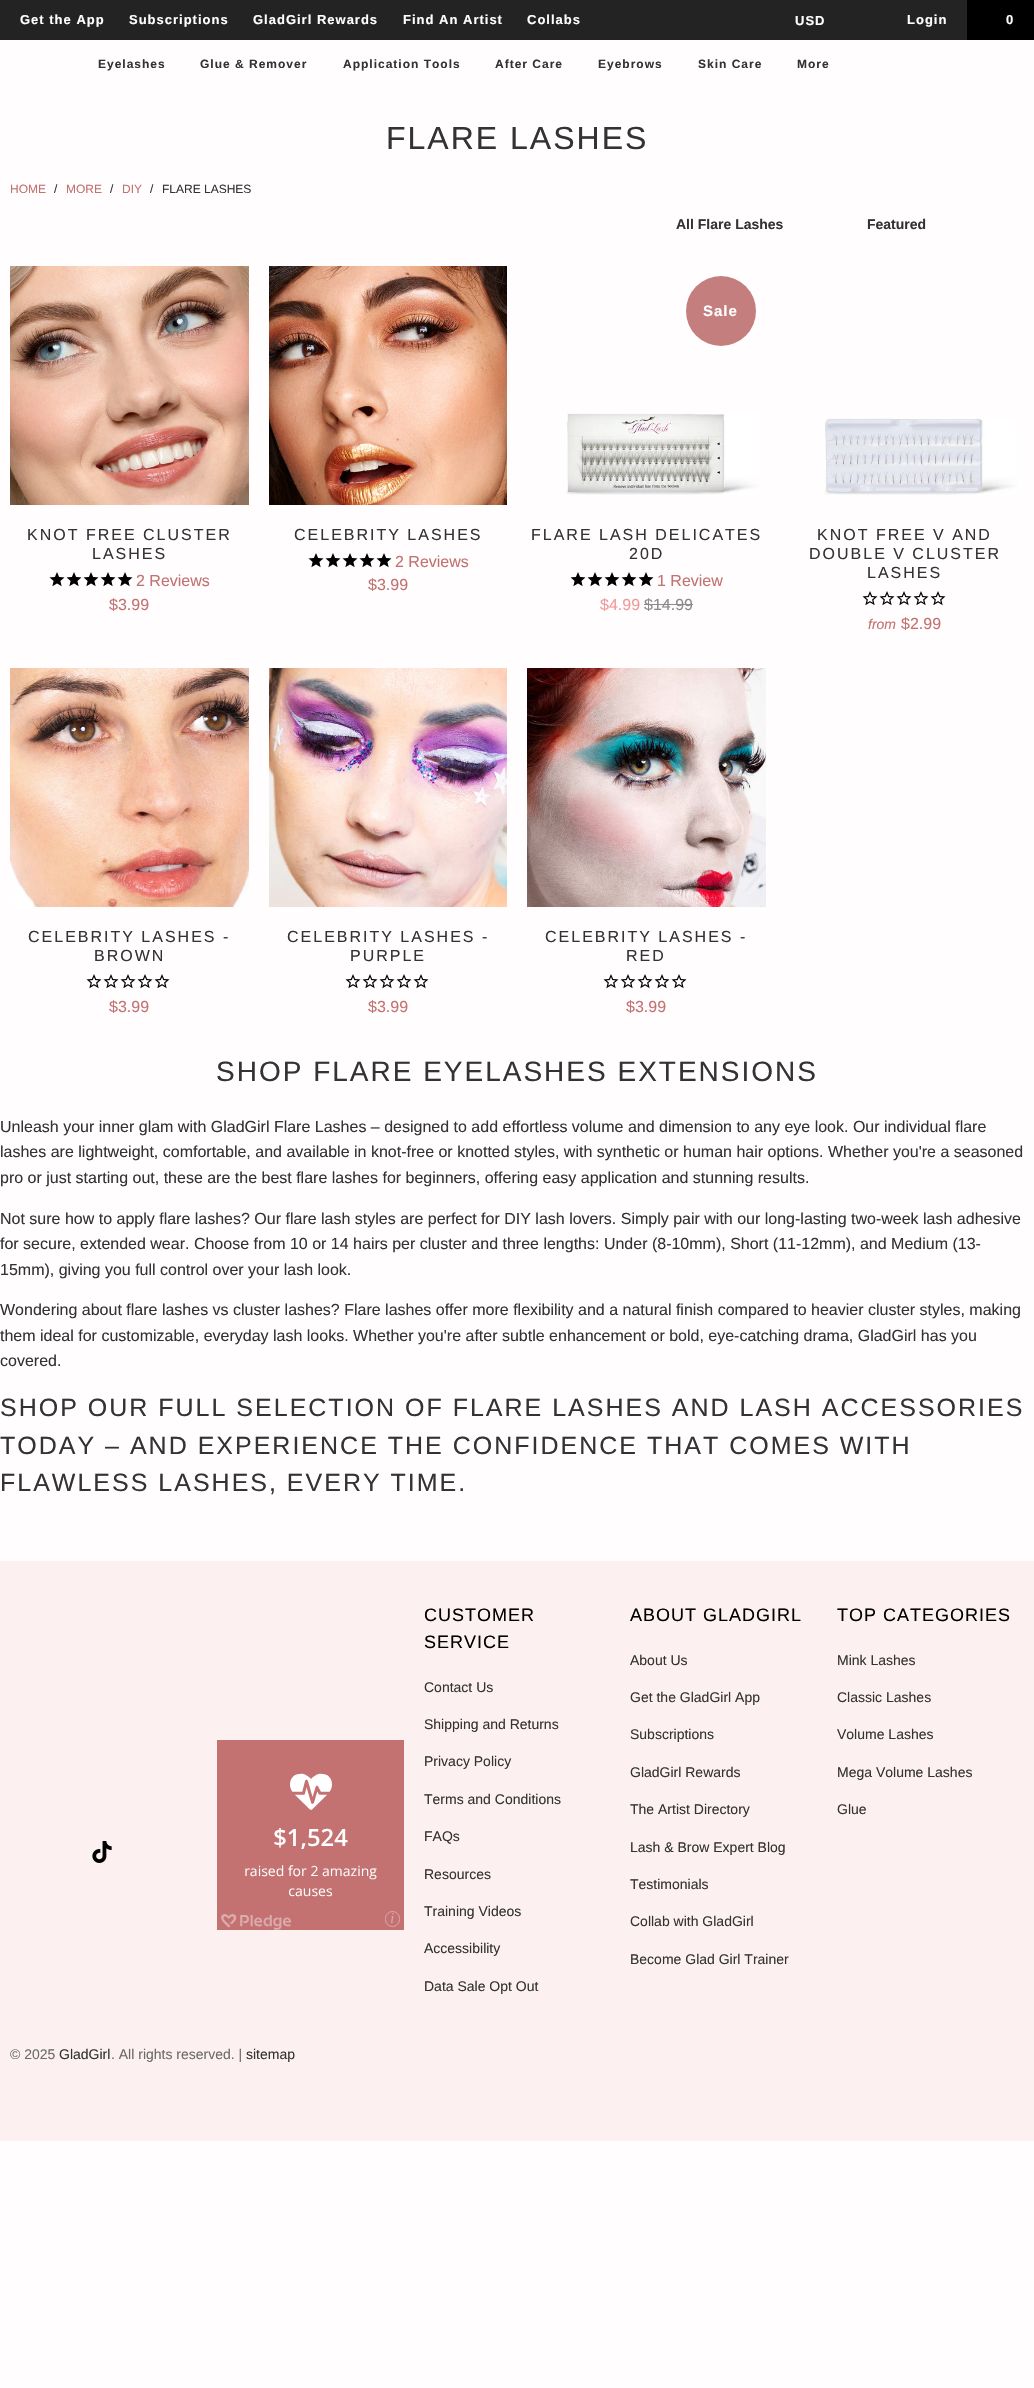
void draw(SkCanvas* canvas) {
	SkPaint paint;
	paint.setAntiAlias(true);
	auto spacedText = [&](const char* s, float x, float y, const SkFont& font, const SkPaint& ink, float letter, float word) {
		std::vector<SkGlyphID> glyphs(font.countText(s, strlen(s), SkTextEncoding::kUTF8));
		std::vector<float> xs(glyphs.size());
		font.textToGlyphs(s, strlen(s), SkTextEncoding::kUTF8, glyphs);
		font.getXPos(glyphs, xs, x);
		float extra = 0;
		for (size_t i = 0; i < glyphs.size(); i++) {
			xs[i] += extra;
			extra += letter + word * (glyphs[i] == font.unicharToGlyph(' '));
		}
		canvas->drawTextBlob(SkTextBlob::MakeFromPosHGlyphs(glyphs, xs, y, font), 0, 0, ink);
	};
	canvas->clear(0xfffffdfd);
	paint.setColor(0xff232323);
	canvas->drawRect(SkRect::MakeXYWH(0, 0, 967, 40), paint);
	SkFont f1(fontMgr->matchFamilyStyle("Liberation Sans", SkFontStyle::Bold()), 13);
	f1.setSubpixel(true);
	paint.setColor(0xffffffff);
	spacedText("Get the App", 20, 24, f1, paint, 1, 0);
	spacedText("Subscriptions", 129, 24, f1, paint, 1, 0);
	spacedText("GladGirl Rewards", 253, 24, f1, paint, 1, 0);
	spacedText("Find An Artist", 403, 24, f1, paint, 1, 0);
	spacedText("Collabs", 527, 24, f1, paint, 1, 0);
	spacedText("USD", 795, 25, f1, paint, 1, 0);
	spacedText("Login", 907, 24, f1, paint, 1, 0);
	paint.setColor(0xff000000);
	canvas->drawRect(SkRect::MakeXYWH(967, 0, 67, 40), paint);
	paint.setColor(0xffffffff);
	spacedText("0", 1006, 24, f1, paint, 1, 0);
	SkFont f2(fontMgr->matchFamilyStyle("Liberation Sans", SkFontStyle::Bold()), 12);
	f2.setSubpixel(true);
	paint.setColor(0xff333333);
	spacedText("Eyelashes", 98, 68, f2, paint, 1, 0);
	spacedText("Glue & Remover", 200, 68, f2, paint, 1, 0);
	spacedText("Application Tools", 343, 68, f2, paint, 1, 0);
	spacedText("After Care", 495, 68, f2, paint, 1, 0);
	spacedText("Eyebrows", 598, 68, f2, paint, 1, 0);
	spacedText("Skin Care", 698, 68, f2, paint, 1, 0);
	spacedText("More", 797, 68, f2, paint, 1, 0);
	SkFont f3(fontMgr->matchFamilyStyle("Liberation Sans", SkFontStyle::Normal()), 32);
	f3.setSubpixel(true);
	spacedText("FLARE LASHES", 386, 149, f3, paint, 2, 0);
	SkFont f4(fontMgr->matchFamilyStyle("Liberation Sans", SkFontStyle::Normal()), 12);
	f4.setSubpixel(true);
	paint.setColor(0xffc37171);
	canvas->drawString("HOME", 10, 193, f4, paint);
	paint.setColor(0xff333333);
	canvas->drawString("/", 54, 193, f4, paint);
	paint.setColor(0xffc37171);
	canvas->drawString("MORE", 66, 193, f4, paint);
	paint.setColor(0xff333333);
	canvas->drawString("/", 110, 193, f4, paint);
	paint.setColor(0xffc37171);
	canvas->drawString("DIY", 122, 193, f4, paint);
	paint.setColor(0xff333333);
	canvas->drawString("/", 150, 193, f4, paint);
	canvas->drawString("FLARE LASHES", 162, 193, f4, paint);
	SkFont f5(fontMgr->matchFamilyStyle("Liberation Sans", SkFontStyle::Bold()), 14);
	f5.setSubpixel(true);
	canvas->drawString("All Flare Lashes", 676, 229, f5, paint);
	canvas->drawString("Featured", 867, 229, f5, paint);
	canvas->drawImageRect(SkImages::DeferredFromEncodedData(SkData::MakeFromFileName("img1.png")), SkRect::MakeXYWH(10, 266, 239, 239), SkSamplingOptions());
	SkFont f6(fontMgr->matchFamilyStyle("Liberation Sans", SkFontStyle::Normal()), 16);
	f6.setSubpixel(true);
	spacedText("KNOT FREE CLUSTER", 27, 540, f6, paint, 2, 0);
	spacedText("LASHES", 92, 559, f6, paint, 2, 0);
	canvas->drawImageRect(SkImages::DeferredFromEncodedData(SkData::MakeFromFileName("img2.png")), SkRect::MakeXYWH(49, 572, 16, 15), SkSamplingOptions());
	canvas->drawImageRect(SkImages::DeferredFromEncodedData(SkData::MakeFromFileName("img2.png")), SkRect::MakeXYWH(66, 572, 16, 15), SkSamplingOptions());
	canvas->drawImageRect(SkImages::DeferredFromEncodedData(SkData::MakeFromFileName("img2.png")), SkRect::MakeXYWH(83, 572, 16, 15), SkSamplingOptions());
	canvas->drawImageRect(SkImages::DeferredFromEncodedData(SkData::MakeFromFileName("img2.png")), SkRect::MakeXYWH(100, 572, 16, 15), SkSamplingOptions());
	canvas->drawImageRect(SkImages::DeferredFromEncodedData(SkData::MakeFromFileName("img2.png")), SkRect::MakeXYWH(117, 572, 16, 15), SkSamplingOptions());
	paint.setColor(0xffc37171);
	canvas->drawString("2 Reviews", 136, 586, f6, paint);
	canvas->drawString("$3.99", 109, 610, f6, paint);
	canvas->drawImageRect(SkImages::DeferredFromEncodedData(SkData::MakeFromFileName("img3.png")), SkRect::MakeXYWH(269, 266, 238, 239), SkSamplingOptions());
	paint.setColor(0xff333333);
	spacedText("CELEBRITY LASHES", 294, 540, f6, paint, 2, 0);
	canvas->drawImageRect(SkImages::DeferredFromEncodedData(SkData::MakeFromFileName("img2.png")), SkRect::MakeXYWH(308, 553, 16, 15), SkSamplingOptions());
	canvas->drawImageRect(SkImages::DeferredFromEncodedData(SkData::MakeFromFileName("img2.png")), SkRect::MakeXYWH(325, 553, 16, 15), SkSamplingOptions());
	canvas->drawImageRect(SkImages::DeferredFromEncodedData(SkData::MakeFromFileName("img2.png")), SkRect::MakeXYWH(342, 553, 16, 15), SkSamplingOptions());
	canvas->drawImageRect(SkImages::DeferredFromEncodedData(SkData::MakeFromFileName("img2.png")), SkRect::MakeXYWH(359, 553, 16, 15), SkSamplingOptions());
	canvas->drawImageRect(SkImages::DeferredFromEncodedData(SkData::MakeFromFileName("img2.png")), SkRect::MakeXYWH(376, 553, 16, 15), SkSamplingOptions());
	paint.setColor(0xffc37171);
	canvas->drawString("2 Reviews", 395, 567, f6, paint);
	canvas->drawString("$3.99", 368, 590, f6, paint);
	paint.setColor(0xffc57e7e);
	canvas->drawCircle(721, 311, 35, paint);
	SkFont f7(fontMgr->matchFamilyStyle("Liberation Sans", SkFontStyle::Bold()), 15);
	f7.setSubpixel(true);
	paint.setColor(0xffffffff);
	spacedText("Sale", 703, 316, f7, paint, 1, 0);
	canvas->drawImageRect(SkImages::DeferredFromEncodedData(SkData::MakeFromFileName("img4.png")), SkRect::MakeXYWH(565, 413, 194, 82), SkSamplingOptions());
	paint.setColor(0xff333333);
	spacedText("FLARE LASH DELICATES", 531, 540, f6, paint, 2, 0);
	spacedText("20D", 629, 559, f6, paint, 2, 0);
	canvas->drawImageRect(SkImages::DeferredFromEncodedData(SkData::MakeFromFileName("img2.png")), SkRect::MakeXYWH(570, 572, 16, 15), SkSamplingOptions());
	canvas->drawImageRect(SkImages::DeferredFromEncodedData(SkData::MakeFromFileName("img2.png")), SkRect::MakeXYWH(587, 572, 16, 15), SkSamplingOptions());
	canvas->drawImageRect(SkImages::DeferredFromEncodedData(SkData::MakeFromFileName("img2.png")), SkRect::MakeXYWH(604, 572, 16, 15), SkSamplingOptions());
	canvas->drawImageRect(SkImages::DeferredFromEncodedData(SkData::MakeFromFileName("img2.png")), SkRect::MakeXYWH(621, 572, 16, 15), SkSamplingOptions());
	canvas->drawImageRect(SkImages::DeferredFromEncodedData(SkData::MakeFromFileName("img2.png")), SkRect::MakeXYWH(638, 572, 16, 15), SkSamplingOptions());
	paint.setColor(0xffc37171);
	canvas->drawString("1 Review", 657, 586, f6, paint);
	paint.setColor(0xfff09b9b);
	canvas->drawString("$4.99", 600, 610, f6, paint);
	paint.setColor(0xff8c8b8b);
	canvas->drawString("$14.99", 644, 610, f6, paint);
	canvas->drawRect(SkRect::MakeXYWH(644, 604, 49, 1), paint);
	canvas->drawImageRect(SkImages::DeferredFromEncodedData(SkData::MakeFromFileName("img5.png")), SkRect::MakeXYWH(824, 418, 193, 77), SkSamplingOptions());
	paint.setColor(0xff333333);
	spacedText("KNOT FREE V AND", 817, 540, f6, paint, 2, 0);
	spacedText("DOUBLE V CLUSTER", 809, 559, f6, paint, 2, 0);
	spacedText("LASHES", 867, 578, f6, paint, 2, 0);
	canvas->drawImageRect(SkImages::DeferredFromEncodedData(SkData::MakeFromFileName("img6.png")), SkRect::MakeXYWH(862, 591, 16, 15), SkSamplingOptions());
	canvas->drawImageRect(SkImages::DeferredFromEncodedData(SkData::MakeFromFileName("img6.png")), SkRect::MakeXYWH(879, 591, 16, 15), SkSamplingOptions());
	canvas->drawImageRect(SkImages::DeferredFromEncodedData(SkData::MakeFromFileName("img6.png")), SkRect::MakeXYWH(896, 591, 16, 15), SkSamplingOptions());
	canvas->drawImageRect(SkImages::DeferredFromEncodedData(SkData::MakeFromFileName("img6.png")), SkRect::MakeXYWH(913, 591, 16, 15), SkSamplingOptions());
	canvas->drawImageRect(SkImages::DeferredFromEncodedData(SkData::MakeFromFileName("img6.png")), SkRect::MakeXYWH(930, 591, 16, 15), SkSamplingOptions());
	SkFont f8(fontMgr->matchFamilyStyle("Liberation Sans", SkFontStyle::Italic()), 14);
	f8.setSubpixel(true);
	paint.setColor(0xffc37171);
	canvas->drawString("from", 868, 629, f8, paint);
	canvas->drawString("$2.99", 901, 629, f6, paint);
	canvas->drawImageRect(SkImages::DeferredFromEncodedData(SkData::MakeFromFileName("img7.png")), SkRect::MakeXYWH(10, 668, 239, 239), SkSamplingOptions());
	paint.setColor(0xff333333);
	spacedText("CELEBRITY LASHES -", 28, 942, f6, paint, 2, 0);
	spacedText("BROWN", 94, 961, f6, paint, 2, 0);
	canvas->drawImageRect(SkImages::DeferredFromEncodedData(SkData::MakeFromFileName("img6.png")), SkRect::MakeXYWH(86, 974, 16, 15), SkSamplingOptions());
	canvas->drawImageRect(SkImages::DeferredFromEncodedData(SkData::MakeFromFileName("img6.png")), SkRect::MakeXYWH(103, 974, 16, 15), SkSamplingOptions());
	canvas->drawImageRect(SkImages::DeferredFromEncodedData(SkData::MakeFromFileName("img6.png")), SkRect::MakeXYWH(120, 974, 16, 15), SkSamplingOptions());
	canvas->drawImageRect(SkImages::DeferredFromEncodedData(SkData::MakeFromFileName("img6.png")), SkRect::MakeXYWH(137, 974, 16, 15), SkSamplingOptions());
	canvas->drawImageRect(SkImages::DeferredFromEncodedData(SkData::MakeFromFileName("img6.png")), SkRect::MakeXYWH(154, 974, 16, 15), SkSamplingOptions());
	paint.setColor(0xffc37171);
	canvas->drawString("$3.99", 109, 1012, f6, paint);
	canvas->drawImageRect(SkImages::DeferredFromEncodedData(SkData::MakeFromFileName("img8.png")), SkRect::MakeXYWH(269, 668, 238, 239), SkSamplingOptions());
	paint.setColor(0xff333333);
	spacedText("CELEBRITY LASHES -", 287, 942, f6, paint, 2, 0);
	spacedText("PURPLE", 350, 961, f6, paint, 2, 0);
	canvas->drawImageRect(SkImages::DeferredFromEncodedData(SkData::MakeFromFileName("img6.png")), SkRect::MakeXYWH(345, 974, 16, 15), SkSamplingOptions());
	canvas->drawImageRect(SkImages::DeferredFromEncodedData(SkData::MakeFromFileName("img6.png")), SkRect::MakeXYWH(362, 974, 16, 15), SkSamplingOptions());
	canvas->drawImageRect(SkImages::DeferredFromEncodedData(SkData::MakeFromFileName("img6.png")), SkRect::MakeXYWH(379, 974, 16, 15), SkSamplingOptions());
	canvas->drawImageRect(SkImages::DeferredFromEncodedData(SkData::MakeFromFileName("img6.png")), SkRect::MakeXYWH(396, 974, 16, 15), SkSamplingOptions());
	canvas->drawImageRect(SkImages::DeferredFromEncodedData(SkData::MakeFromFileName("img6.png")), SkRect::MakeXYWH(413, 974, 16, 15), SkSamplingOptions());
	paint.setColor(0xffc37171);
	canvas->drawString("$3.99", 368, 1012, f6, paint);
	canvas->drawImageRect(SkImages::DeferredFromEncodedData(SkData::MakeFromFileName("img9.png")), SkRect::MakeXYWH(527, 668, 239, 239), SkSamplingOptions());
	paint.setColor(0xff333333);
	spacedText("CELEBRITY LASHES -", 545, 942, f6, paint, 2, 0);
	spacedText("RED", 626, 961, f6, paint, 2, 0);
	canvas->drawImageRect(SkImages::DeferredFromEncodedData(SkData::MakeFromFileName("img6.png")), SkRect::MakeXYWH(603, 974, 16, 15), SkSamplingOptions());
	canvas->drawImageRect(SkImages::DeferredFromEncodedData(SkData::MakeFromFileName("img6.png")), SkRect::MakeXYWH(620, 974, 16, 15), SkSamplingOptions());
	canvas->drawImageRect(SkImages::DeferredFromEncodedData(SkData::MakeFromFileName("img6.png")), SkRect::MakeXYWH(637, 974, 16, 15), SkSamplingOptions());
	canvas->drawImageRect(SkImages::DeferredFromEncodedData(SkData::MakeFromFileName("img6.png")), SkRect::MakeXYWH(654, 974, 16, 15), SkSamplingOptions());
	canvas->drawImageRect(SkImages::DeferredFromEncodedData(SkData::MakeFromFileName("img6.png")), SkRect::MakeXYWH(671, 974, 16, 15), SkSamplingOptions());
	paint.setColor(0xffc37171);
	canvas->drawString("$3.99", 626, 1012, f6, paint);
	SkFont f9(fontMgr->matchFamilyStyle("Liberation Sans", SkFontStyle::Normal()), 28);
	f9.setSubpixel(true);
	paint.setColor(0xff333333);
	spacedText("SHOP FLARE EYELASHES EXTENSIONS", 216, 1081, f9, paint, 2, 0);
	canvas->drawString("Unleash your inner glam with GladGirl Flare Lashes – designed to add effortless volume and dimension to any eye look. Our individual flare", 0, 1132, f6, paint);
	canvas->drawString("lashes are lightweight, comfortable, and available in knot-free or knotted styles, with synthetic or human hair options. Whether you're a seasoned", 0, 1157, f6, paint);
	canvas->drawString("pro or just starting out, these are the best flare lashes for beginners, offering easy application and stunning results.", 0, 1183, f6, paint);
	canvas->drawString("Not sure how to apply flare lashes? Our flare lash styles are perfect for DIY lash lovers. Simply pair with our long-lasting two-week lash adhesive", 0, 1224, f6, paint);
	canvas->drawString("for secure, extended wear. Choose from 10 or 14 hairs per cluster and three lengths: Under (8-10mm), Short (11-12mm), and Medium (13-", 0, 1249, f6, paint);
	canvas->drawString("15mm), giving you full control over your lash look.", 0, 1275, f6, paint);
	canvas->drawString("Wondering about flare lashes vs cluster lashes? Flare lashes offer more flexibility and a natural finish compared to heavier cluster styles, making", 0, 1315, f6, paint);
	canvas->drawString("them ideal for customizable, everyday lash looks. Whether you're after subtle enhancement or bold, eye-catching drama, GladGirl has you", 0, 1341, f6, paint);
	canvas->drawString("covered.", 0, 1366, f6, paint);
	SkFont f10(fontMgr->matchFamilyStyle("Liberation Sans", SkFontStyle::Normal()), 25);
	f10.setSubpixel(true);
	spacedText("SHOP OUR FULL SELECTION OF FLARE LASHES AND LASH ACCESSORIES", 0, 1416, f10, paint, 2, 0);
	spacedText("TODAY – AND EXPERIENCE THE CONFIDENCE THAT COMES WITH", 0, 1454, f10, paint, 2, 0);
	spacedText("FLAWLESS LASHES, EVERY TIME.", 0, 1491, f10, paint, 2, 0);
	paint.setColor(0xfffdf0f0);
	canvas->drawRect(SkRect::MakeXYWH(0, 1561, 1034, 580), paint);
	SkFont f11(fontMgr->matchFamilyStyle("Liberation Sans", SkFontStyle::Normal()), 18);
	f11.setSubpixel(true);
	paint.setColor(0xff000000);
	spacedText("CUSTOMER", 424, 1621, f11, paint, 1, 0);
	spacedText("SERVICE", 424, 1648, f11, paint, 1, 0);
	SkFont f12(fontMgr->matchFamilyStyle("Liberation Sans", SkFontStyle::Normal()), 14);
	f12.setSubpixel(true);
	paint.setColor(0xff333333);
	canvas->drawString("Contact Us", 424, 1692, f12, paint);
	canvas->drawString("Shipping and Returns", 424, 1729, f12, paint);
	canvas->drawString("Privacy Policy", 424, 1766, f12, paint);
	canvas->drawString("Terms and Conditions", 424, 1804, f12, paint);
	canvas->drawString("FAQs", 424, 1841, f12, paint);
	canvas->drawString("Resources", 424, 1879, f12, paint);
	canvas->drawString("Training Videos", 424, 1916, f12, paint);
	canvas->drawString("Accessibility", 424, 1953, f12, paint);
	canvas->drawString("Data Sale Opt Out", 424, 1991, f12, paint);
	paint.setColor(0xff000000);
	spacedText("ABOUT GLADGIRL", 630, 1621, f11, paint, 1, 0);
	paint.setColor(0xff333333);
	canvas->drawString("About Us", 630, 1665, f12, paint);
	canvas->drawString("Get the GladGirl App", 630, 1702, f12, paint);
	canvas->drawString("Subscriptions", 630, 1739, f12, paint);
	canvas->drawString("GladGirl Rewards", 630, 1777, f12, paint);
	canvas->drawString("The Artist Directory", 630, 1814, f12, paint);
	canvas->drawString("Lash & Brow Expert Blog", 630, 1852, f12, paint);
	canvas->drawString("Testimonials", 630, 1889, f12, paint);
	canvas->drawString("Collab with GladGirl", 630, 1926, f12, paint);
	canvas->drawString("Become Glad Girl Trainer", 630, 1964, f12, paint);
	paint.setColor(0xff000000);
	spacedText("TOP CATEGORIES", 837, 1621, f11, paint, 1, 0);
	paint.setColor(0xff333333);
	canvas->drawString("Mink Lashes", 837, 1665, f12, paint);
	canvas->drawString("Classic Lashes", 837, 1702, f12, paint);
	canvas->drawString("Volume Lashes", 837, 1739, f12, paint);
	canvas->drawString("Mega Volume Lashes", 837, 1777, f12, paint);
	canvas->drawString("Glue", 837, 1814, f12, paint);
	canvas->drawImageRect(SkImages::DeferredFromEncodedData(SkData::MakeFromFileName("img10.png")), SkRect::MakeXYWH(92, 1841, 20, 22), SkSamplingOptions());
	canvas->drawImageRect(SkImages::DeferredFromEncodedData(SkData::MakeFromFileName("img11.png")), SkRect::MakeXYWH(217, 1740, 187, 190), SkSamplingOptions());
	paint.setColor(0xff6b6b6b);
	canvas->drawString("© 2025", 10, 2059, f12, paint);
	paint.setColor(0xff333333);
	canvas->drawString("GladGirl", 59, 2059, f12, paint);
	paint.setColor(0xff6b6b6b);
	canvas->drawString(". All rights reserved. |", 111, 2059, f12, paint);
	paint.setColor(0xff333333);
	canvas->drawString("sitemap", 246, 2059, f12, paint);
}
